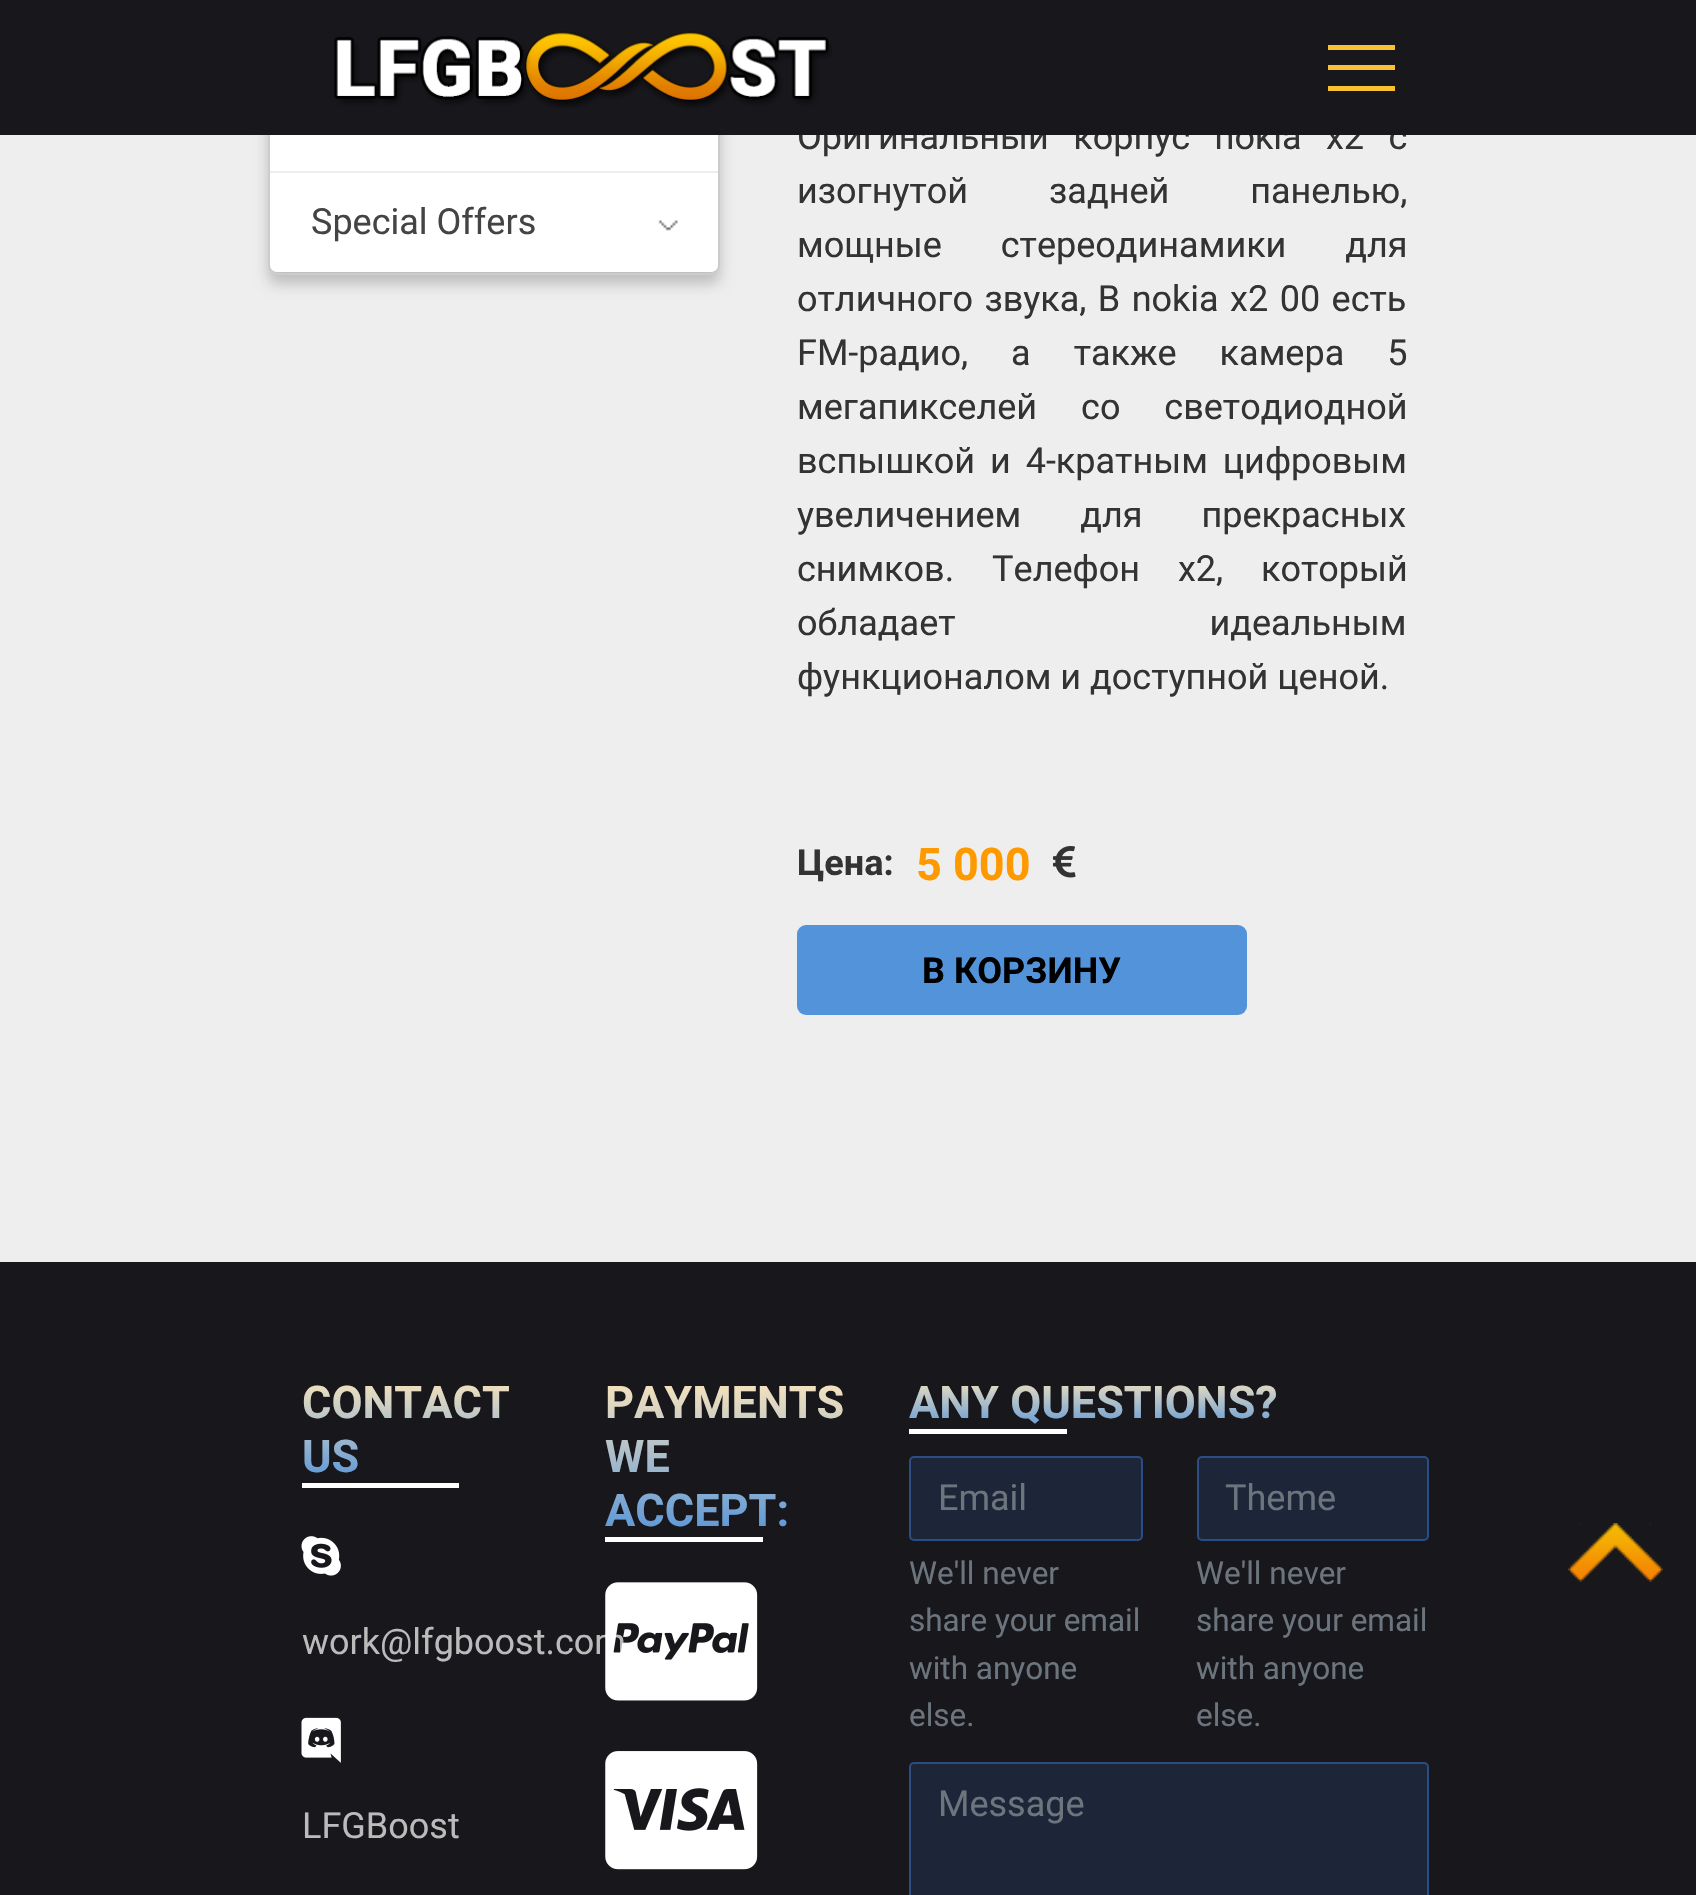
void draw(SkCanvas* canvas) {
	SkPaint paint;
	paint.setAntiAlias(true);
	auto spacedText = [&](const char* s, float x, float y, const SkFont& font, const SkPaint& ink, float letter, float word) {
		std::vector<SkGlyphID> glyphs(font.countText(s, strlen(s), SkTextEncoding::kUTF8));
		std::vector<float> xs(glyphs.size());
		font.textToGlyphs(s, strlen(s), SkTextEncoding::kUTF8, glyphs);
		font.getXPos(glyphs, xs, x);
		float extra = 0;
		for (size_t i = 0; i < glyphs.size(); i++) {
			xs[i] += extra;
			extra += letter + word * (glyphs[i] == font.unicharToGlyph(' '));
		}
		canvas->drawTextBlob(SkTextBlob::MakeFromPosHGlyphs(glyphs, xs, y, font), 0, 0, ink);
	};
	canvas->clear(0xffeeeeee);
	paint.setColor(0x33000000);
	paint.setMaskFilter(SkMaskFilter::MakeBlur(kNormal_SkBlurStyle, 7));
	canvas->drawRoundRect(SkRect::MakeXYWH(268, -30, 452, 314), 9, 9, paint);
	paint.setMaskFilter(nullptr);
	paint.setStroke(true);
	paint.setStrokeWidth(2);
	paint.setColor(0xffcccccc);
	canvas->drawRoundRect(SkRect::MakeXYWH(269, -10, 450, 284), 8, 8, paint);
	paint.setStroke(false);
	paint.setColor(0xffffffff);
	canvas->drawRoundRect(SkRect::MakeXYWH(270, -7, 448, 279), 7, 7, paint);
	SkFont f1(fontMgr->matchFamilyStyle("Roboto", SkFontStyle::Normal()), 36);
	f1.setSubpixel(true);
	paint.setColor(0xff333333);
	spacedText("Оригинальный корпус nokia x2 с", 797, 149, f1, paint, 0, 15.5);
	paint.setColor(0xff18171c);
	canvas->drawRect(SkRect::MakeXYWH(0, 0, 1696, 135), paint);
	canvas->drawImageRect(SkImages::DeferredFromEncodedData(SkData::MakeFromFileName("img1.png")), SkRect::MakeXYWH(334, 31, 498, 77), SkSamplingOptions());
	paint.setColor(0xfff9c032);
	canvas->drawRect(SkRect::MakeXYWH(1328, 45, 67, 5), paint);
	canvas->drawRect(SkRect::MakeXYWH(1328, 65, 67, 5), paint);
	canvas->drawRect(SkRect::MakeXYWH(1328, 86, 67, 5), paint);
	paint.setColor(0xffeeeeee);
	canvas->drawRect(SkRect::MakeXYWH(270, 171, 448, 2), paint);
	paint.setColor(0xff444444);
	canvas->drawString("Special Offers", 311, 234, f1, paint);
	canvas->drawImageRect(SkImages::DeferredFromEncodedData(SkData::MakeFromFileName("img2.png")), SkRect::MakeXYWH(658, 220, 20, 11), SkSamplingOptions());
	paint.setColor(0xff333333);
	spacedText("изогнутой задней панелью,", 797, 203, f1, paint, 0, 72);
	spacedText("мощные стереодинамики для", 797, 257, f1, paint, 0, 50);
	spacedText("отличного звука, В nokia x2 00 есть", 797, 311, f1, paint, 0, 2.5);
	spacedText("FM-радио, а также камера 5", 797, 365, f1, paint, 0, 34);
	spacedText("мегапикселей со светодиодной", 797, 419, f1, paint, 0, 35);
	spacedText("вспышкой и 4-кратным цифровым", 797, 473, f1, paint, 0, 6);
	spacedText("увеличением для прекрасных", 797, 527, f1, paint, 0, 50);
	spacedText("снимков. Телефон x2, который", 797, 581, f1, paint, 0, 29);
	spacedText("обладает идеальным", 797, 635, f1, paint, 0, 245);
	canvas->drawString("функционалом и доступной ценой.", 797, 689, f1, paint);
	SkFont f2(fontMgr->matchFamilyStyle("Roboto", SkFontStyle::Bold()), 36);
	f2.setSubpixel(true);
	canvas->drawString("Цена:", 797, 875, f2, paint);
	SkFont f3(fontMgr->matchFamilyStyle("Roboto", SkFontStyle::Bold()), 45);
	f3.setSubpixel(true);
	paint.setColor(0xffff9900);
	canvas->drawString("5 000", 916, 880, f3, paint);
	canvas->drawImageRect(SkImages::DeferredFromEncodedData(SkData::MakeFromFileName("img3.png")), SkRect::MakeXYWH(1053, 846, 23, 32), SkSamplingOptions());
	paint.setColor(0xff5393da);
	canvas->drawRoundRect(SkRect::MakeXYWH(797, 925, 450, 90), 9, 9, paint);
	paint.setColor(0xff000000);
	canvas->drawString("В КОРЗИНУ", 922, 983, f2, paint);
	paint.setColor(0xff18171c);
	canvas->drawRect(SkRect::MakeXYWH(0, 1262, 1696, 633), paint);
	{
		const SkColor colors[] = {0xfffde6bc, 0xff5393da};
		const float stops[] = {0, 1};
		const SkPoint ends[] = {{393, 1375}, {393, 1487}};
		paint.setShader(SkGradientShader::MakeLinear(ends, colors, stops, 2, SkTileMode::kClamp));
		paint.setAlpha(255);
	}
	canvas->drawString("CONTACT", 302, 1418, f3, paint);
	canvas->drawString("US", 302, 1472, f3, paint);
	paint.setShader(nullptr);
	paint.setColor(0xffffffff);
	canvas->drawRect(SkRect::MakeXYWH(302, 1483, 157, 5), paint);
	canvas->drawImageRect(SkImages::DeferredFromEncodedData(SkData::MakeFromFileName("img4.png")), SkRect::MakeXYWH(301, 1536, 40, 40), SkSamplingOptions());
	paint.setColor(0xffbbbbbb);
	canvas->drawString("work@lfgboost.com", 302, 1654, f1, paint);
	canvas->drawImageRect(SkImages::DeferredFromEncodedData(SkData::MakeFromFileName("img5.png")), SkRect::MakeXYWH(301, 1717, 40, 46), SkSamplingOptions());
	canvas->drawString("LFGBoost", 302, 1838, f1, paint);
	{
		const SkColor colors[] = {0xfffde6bc, 0xff5393da};
		const float stops[] = {0, 1};
		const SkPoint ends[] = {{696, 1375}, {696, 1541}};
		paint.setShader(SkGradientShader::MakeLinear(ends, colors, stops, 2, SkTileMode::kClamp));
		paint.setAlpha(255);
	}
	canvas->drawString("PAYMENTS", 605, 1418, f3, paint);
	canvas->drawString("WE", 605, 1472, f3, paint);
	canvas->drawString("ACCEPT:", 605, 1526, f3, paint);
	paint.setShader(nullptr);
	paint.setColor(0xffffffff);
	canvas->drawRect(SkRect::MakeXYWH(605, 1537, 158, 5), paint);
	canvas->drawImageRect(SkImages::DeferredFromEncodedData(SkData::MakeFromFileName("img6.png")), SkRect::MakeXYWH(605, 1582, 153, 119), SkSamplingOptions());
	canvas->drawImageRect(SkImages::DeferredFromEncodedData(SkData::MakeFromFileName("img7.png")), SkRect::MakeXYWH(605, 1751, 153, 119), SkSamplingOptions());
	{
		const SkColor colors[] = {0xfffde6bc, 0xff5393da};
		const float stops[] = {0, 1};
		const SkPoint ends[] = {{1152, 1375}, {1152, 1433}};
		paint.setShader(SkGradientShader::MakeLinear(ends, colors, stops, 2, SkTileMode::kClamp));
		paint.setAlpha(255);
	}
	canvas->drawString("ANY QUESTIONS?", 909, 1418, f3, paint);
	paint.setShader(nullptr);
	paint.setColor(0xffffffff);
	canvas->drawRect(SkRect::MakeXYWH(909, 1429, 158, 5), paint);
	paint.setColor(0xff1c2638);
	canvas->drawRoundRect(SkRect::MakeXYWH(911, 1458, 230, 81), 2, 2, paint);
	paint.setStroke(true);
	paint.setColor(0xff2c4c84);
	canvas->drawRoundRect(SkRect::MakeXYWH(910, 1457, 232, 83), 4, 4, paint);
	paint.setStroke(false);
	paint.setColor(0xff6c757d);
	canvas->drawString("Email", 938, 1510, f1, paint);
	SkFont f4(fontMgr->matchFamilyStyle("Roboto", SkFontStyle::Normal()), 31.5);
	f4.setSubpixel(true);
	canvas->drawString("We'll never", 909, 1584, f4, paint);
	canvas->drawString("share your email", 909, 1631, f4, paint);
	canvas->drawString("with anyone", 909, 1679, f4, paint);
	canvas->drawString("else.", 909, 1726, f4, paint);
	paint.setColor(0xff1c2638);
	canvas->drawRoundRect(SkRect::MakeXYWH(1199, 1458, 228, 81), 2, 2, paint);
	paint.setStroke(true);
	paint.setColor(0xff2c4c84);
	canvas->drawRoundRect(SkRect::MakeXYWH(1198, 1457, 230, 83), 4, 4, paint);
	paint.setStroke(false);
	paint.setColor(0xff6c757d);
	canvas->drawString("Theme", 1225, 1510, f1, paint);
	canvas->drawString("We'll never", 1196, 1584, f4, paint);
	canvas->drawString("share your email", 1196, 1631, f4, paint);
	canvas->drawString("with anyone", 1196, 1679, f4, paint);
	canvas->drawString("else.", 1196, 1726, f4, paint);
	paint.setColor(0xff1c2638);
	canvas->drawRoundRect(SkRect::MakeXYWH(911, 1764, 516, 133), 2, 2, paint);
	paint.setStroke(true);
	paint.setColor(0xff2c4c84);
	canvas->drawRoundRect(SkRect::MakeXYWH(910, 1763, 518, 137), 4, 4, paint);
	paint.setStroke(false);
	paint.setColor(0xff6c757d);
	canvas->drawString("Message", 938, 1816, f1, paint);
	canvas->drawImageRect(SkImages::DeferredFromEncodedData(SkData::MakeFromFileName("img8.png")), SkRect::MakeXYWH(1568, 1523, 95, 59), SkSamplingOptions());
}
